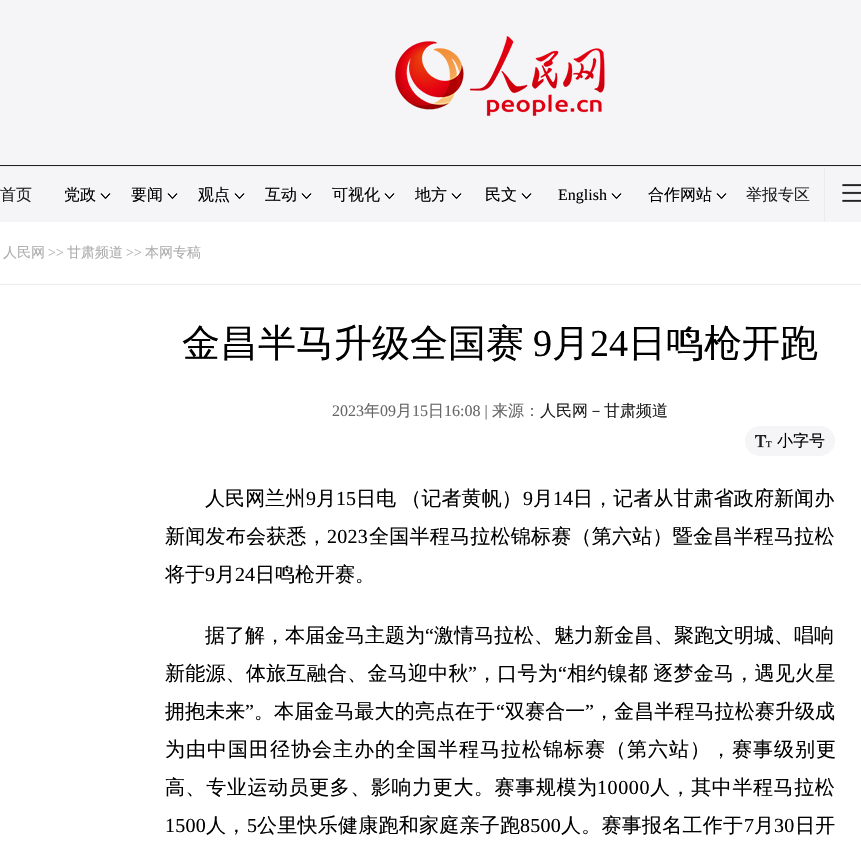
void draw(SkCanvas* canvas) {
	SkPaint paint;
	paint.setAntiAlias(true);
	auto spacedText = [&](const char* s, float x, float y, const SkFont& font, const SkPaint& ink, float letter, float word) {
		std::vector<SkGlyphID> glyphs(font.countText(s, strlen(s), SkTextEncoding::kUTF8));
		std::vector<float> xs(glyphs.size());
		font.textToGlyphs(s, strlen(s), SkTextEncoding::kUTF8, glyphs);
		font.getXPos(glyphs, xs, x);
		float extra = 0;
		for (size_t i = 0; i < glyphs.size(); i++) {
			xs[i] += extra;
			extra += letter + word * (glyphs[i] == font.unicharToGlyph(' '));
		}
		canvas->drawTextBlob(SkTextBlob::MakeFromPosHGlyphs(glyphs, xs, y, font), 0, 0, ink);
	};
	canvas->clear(0xffffffff);
	paint.setColor(0xfff5f5f7);
	canvas->drawRect(SkRect::MakeXYWH(0, 0, 861, 165), paint);
	paint.setColor(0xff212121);
	canvas->drawRect(SkRect::MakeXYWH(0, 165, 861, 1), paint);
	canvas->drawImageRect(SkImages::DeferredFromEncodedData(SkData::MakeFromFileName("img1.png")), SkRect::MakeXYWH(395, 36, 210, 80), SkSamplingOptions());
	paint.setColor(0xffe9e9e9);
	canvas->drawRect(SkRect::MakeXYWH(0, 166, 861, 1), paint);
	paint.setColor(0xfff5f5f7);
	canvas->drawRect(SkRect::MakeXYWH(0, 167, 861, 55), paint);
	SkFont f1(fontMgr->matchFamilyStyle("WenQuanYi Zen Hei", SkFontStyle(500, SkFontStyle::kNormal_Width, SkFontStyle::kUpright_Slant)), 16);
	f1.setSubpixel(true);
	paint.setColor(0xff212121);
	canvas->drawString("首页", 0, 200, f1, paint);
	paint.setColor(0xff000000);
	canvas->drawString("党政", 64, 200, f1, paint);
	canvas->drawImageRect(SkImages::DeferredFromEncodedData(SkData::MakeFromFileName("img2.png")), SkRect::MakeXYWH(100, 193, 11, 6), SkSamplingOptions());
	canvas->drawString("要闻", 131, 200, f1, paint);
	canvas->drawImageRect(SkImages::DeferredFromEncodedData(SkData::MakeFromFileName("img2.png")), SkRect::MakeXYWH(167, 193, 11, 6), SkSamplingOptions());
	canvas->drawString("观点", 198, 200, f1, paint);
	canvas->drawImageRect(SkImages::DeferredFromEncodedData(SkData::MakeFromFileName("img2.png")), SkRect::MakeXYWH(234, 193, 11, 6), SkSamplingOptions());
	canvas->drawString("互动", 265, 200, f1, paint);
	canvas->drawImageRect(SkImages::DeferredFromEncodedData(SkData::MakeFromFileName("img2.png")), SkRect::MakeXYWH(301, 193, 11, 6), SkSamplingOptions());
	canvas->drawString("可视化", 332, 200, f1, paint);
	canvas->drawImageRect(SkImages::DeferredFromEncodedData(SkData::MakeFromFileName("img2.png")), SkRect::MakeXYWH(384, 193, 11, 6), SkSamplingOptions());
	canvas->drawString("地方", 415, 200, f1, paint);
	canvas->drawImageRect(SkImages::DeferredFromEncodedData(SkData::MakeFromFileName("img2.png")), SkRect::MakeXYWH(451, 193, 11, 6), SkSamplingOptions());
	canvas->drawString("民文", 485, 200, f1, paint);
	canvas->drawImageRect(SkImages::DeferredFromEncodedData(SkData::MakeFromFileName("img2.png")), SkRect::MakeXYWH(521, 193, 11, 6), SkSamplingOptions());
	SkFont f2(fontMgr->matchFamilyStyle("Liberation Serif", SkFontStyle::Normal()), 16);
	f2.setSubpixel(true);
	canvas->drawString("English", 558, 200, f2, paint);
	canvas->drawImageRect(SkImages::DeferredFromEncodedData(SkData::MakeFromFileName("img2.png")), SkRect::MakeXYWH(611, 193, 11, 6), SkSamplingOptions());
	canvas->drawString("合作网站", 648, 200, f1, paint);
	canvas->drawImageRect(SkImages::DeferredFromEncodedData(SkData::MakeFromFileName("img2.png")), SkRect::MakeXYWH(716, 193, 11, 6), SkSamplingOptions());
	paint.setColor(0xff212121);
	canvas->drawString("举报专区", 746, 200, f1, paint);
	paint.setColor(0xffebebed);
	canvas->drawRect(SkRect::MakeXYWH(824, 167, 1, 55), paint);
	canvas->drawImageRect(SkImages::DeferredFromEncodedData(SkData::MakeFromFileName("img3.png")), SkRect::MakeXYWH(842, 184, 19, 18), SkSamplingOptions());
	paint.setColor(0xffececec);
	canvas->drawRect(SkRect::MakeXYWH(0, 284, 861, 1), paint);
	SkFont f3(fontMgr->matchFamilyStyle("WenQuanYi Zen Hei", SkFontStyle(500, SkFontStyle::kNormal_Width, SkFontStyle::kUpright_Slant)), 14);
	f3.setSubpixel(true);
	paint.setColor(0xffadadad);
	canvas->drawString("人民网", 3, 257, f3, paint);
	SkFont f4(fontMgr->matchFamilyStyle("Liberation Serif", SkFontStyle::Normal()), 14);
	f4.setSubpixel(true);
	canvas->drawString(">>", 48, 257, f4, paint);
	canvas->drawString("甘肃频道", 67, 257, f3, paint);
	canvas->drawString(">>", 126, 257, f4, paint);
	canvas->drawString("本网专稿", 145, 257, f3, paint);
	SkFont f5(fontMgr->matchFamilyStyle("WenQuanYi Zen Hei", SkFontStyle(500, SkFontStyle::kNormal_Width, SkFontStyle::kUpright_Slant)), 38);
	f5.setSubpixel(true);
	paint.setColor(0xff000000);
	canvas->drawString("金昌半马升级全国赛", 182, 356, f5, paint);
	SkFont f6(fontMgr->matchFamilyStyle("Liberation Serif", SkFontStyle::Normal()), 38);
	f6.setSubpixel(true);
	canvas->drawString("9", 533, 356, f6, paint);
	canvas->drawString("月", 552, 356, f5, paint);
	canvas->drawString("24", 590, 356, f6, paint);
	canvas->drawString("日鸣枪开跑", 628, 356, f5, paint);
	paint.setColor(0xff666666);
	canvas->drawString("2023", 332, 416, f2, paint);
	canvas->drawString("年", 364, 416, f1, paint);
	canvas->drawString("09", 380, 416, f2, paint);
	canvas->drawString("月", 396, 416, f1, paint);
	canvas->drawString("15", 412, 416, f2, paint);
	canvas->drawString("日", 428, 416, f1, paint);
	canvas->drawString("16:08 |", 444, 416, f2, paint);
	canvas->drawString("来源：", 492, 416, f1, paint);
	paint.setColor(0xff212121);
	canvas->drawString("人民网－甘肃频道", 540, 416, f1, paint);
	paint.setColor(0xfff5f5f7);
	canvas->drawRoundRect(SkRect::MakeXYWH(745, 426, 90, 30), 15, 15, paint);
	canvas->drawImageRect(SkImages::DeferredFromEncodedData(SkData::MakeFromFileName("img4.png")), SkRect::MakeXYWH(755, 435, 17, 13), SkSamplingOptions());
	paint.setColor(0xff000000);
	canvas->drawString("小字号", 777, 446, f1, paint);
	SkFont f7(fontMgr->matchFamilyStyle("WenQuanYi Zen Hei", SkFontStyle(500, SkFontStyle::kNormal_Width, SkFontStyle::kUpright_Slant)), 20);
	f7.setSubpixel(true);
	spacedText("人民网兰州", 205, 505, f7, paint, 0.1, 0);
	SkFont f8(fontMgr->matchFamilyStyle("Liberation Serif", SkFontStyle::Normal()), 20);
	f8.setSubpixel(true);
	spacedText("9", 306, 505, f8, paint, 0.1, 0);
	spacedText("月", 316, 505, f7, paint, 0.1, 0);
	spacedText("15", 336, 505, f8, paint, 0.1, 0);
	spacedText("日电 （记者黄帆）", 356, 505, f7, paint, 0.1, -1);
	spacedText("9", 523, 505, f8, paint, 0.1, 0);
	spacedText("月", 533, 505, f7, paint, 0.1, 0);
	spacedText("14", 553, 505, f8, paint, 0.1, 0);
	spacedText("日，记者从甘肃省政府新闻办", 573, 505, f7, paint, 0.1, 0);
	spacedText("新闻发布会获悉，", 165, 543, f7, paint, 0.25, 0);
	spacedText("2023", 327, 543, f8, paint, 0.25, 0);
	spacedText("全国半程马拉松锦标赛（第六站）暨金昌半程马拉松", 369, 543, f7, paint, 0.25, 0);
	canvas->drawString("将于", 165, 581, f7, paint);
	canvas->drawString("9", 205, 581, f8, paint);
	canvas->drawString("月", 215, 581, f7, paint);
	canvas->drawString("24", 235, 581, f8, paint);
	canvas->drawString("日鸣枪开赛。", 255, 581, f7, paint);
	canvas->drawString("据了解，本届金马主题为", 205, 642, f7, paint);
	canvas->drawString("“", 425, 642, f8, paint);
	canvas->drawString("激情马拉松、魅力新金昌、聚跑文明城、唱响", 434, 642, f7, paint);
	spacedText("新能源、体旅互融合、金马迎中秋", 165, 680, f7, paint, 0.25, 0);
	spacedText("”", 468, 680, f8, paint, 0.25, 0);
	spacedText("，口号为", 477, 680, f7, paint, 0.25, 0);
	spacedText("“", 558, 680, f8, paint, 0.25, 0);
	spacedText("相约镍都 逐梦金马，遇见火星", 567, 680, f7, paint, 0.25, -1);
	spacedText("拥抱未来", 165, 718, f7, paint, 0.1, 0);
	spacedText("”", 245, 718, f8, paint, 0.1, 0);
	spacedText("。本届金马最大的亮点在于", 254, 718, f7, paint, 0.1, 0);
	spacedText("“", 496, 718, f8, paint, 0.1, 0);
	spacedText("双赛合一", 505, 718, f7, paint, 0.1, 0);
	spacedText("”", 585, 718, f8, paint, 0.1, 0);
	spacedText("，金昌半程马拉松赛升级成", 594, 718, f7, paint, 0.1, 0);
	spacedText("为由中国田径协会主办的全国半程马拉松锦标赛（第六站），赛事级别更", 165, 756, f7, paint, 1, 0);
	spacedText("高、专业运动员更多、影响力更大。赛事规模为", 165, 794, f7, paint, 0.6, 0);
	spacedText("10000", 597, 794, f8, paint, 0.6, 0);
	spacedText("人，其中半程马拉松", 650, 794, f7, paint, 0.6, 0);
	spacedText("1500", 165, 832, f8, paint, 0.25, 0);
	spacedText("人，", 206, 832, f7, paint, 0.25, 0);
	spacedText("5", 247, 832, f8, paint, 0.25, 0);
	spacedText("公里快乐健康跑和家庭亲子跑", 257, 832, f7, paint, 0.25, 0);
	spacedText("8500", 520, 832, f8, paint, 0.25, 0);
	spacedText("人。赛事报名工作于", 561, 832, f7, paint, 0.25, 0);
	spacedText("7", 744, 832, f8, paint, 0.25, 0);
	spacedText("月", 754, 832, f7, paint, 0.25, 0);
	spacedText("30", 774, 832, f8, paint, 0.25, 0);
	spacedText("日开", 795, 832, f7, paint, 0.25, 0);
}
